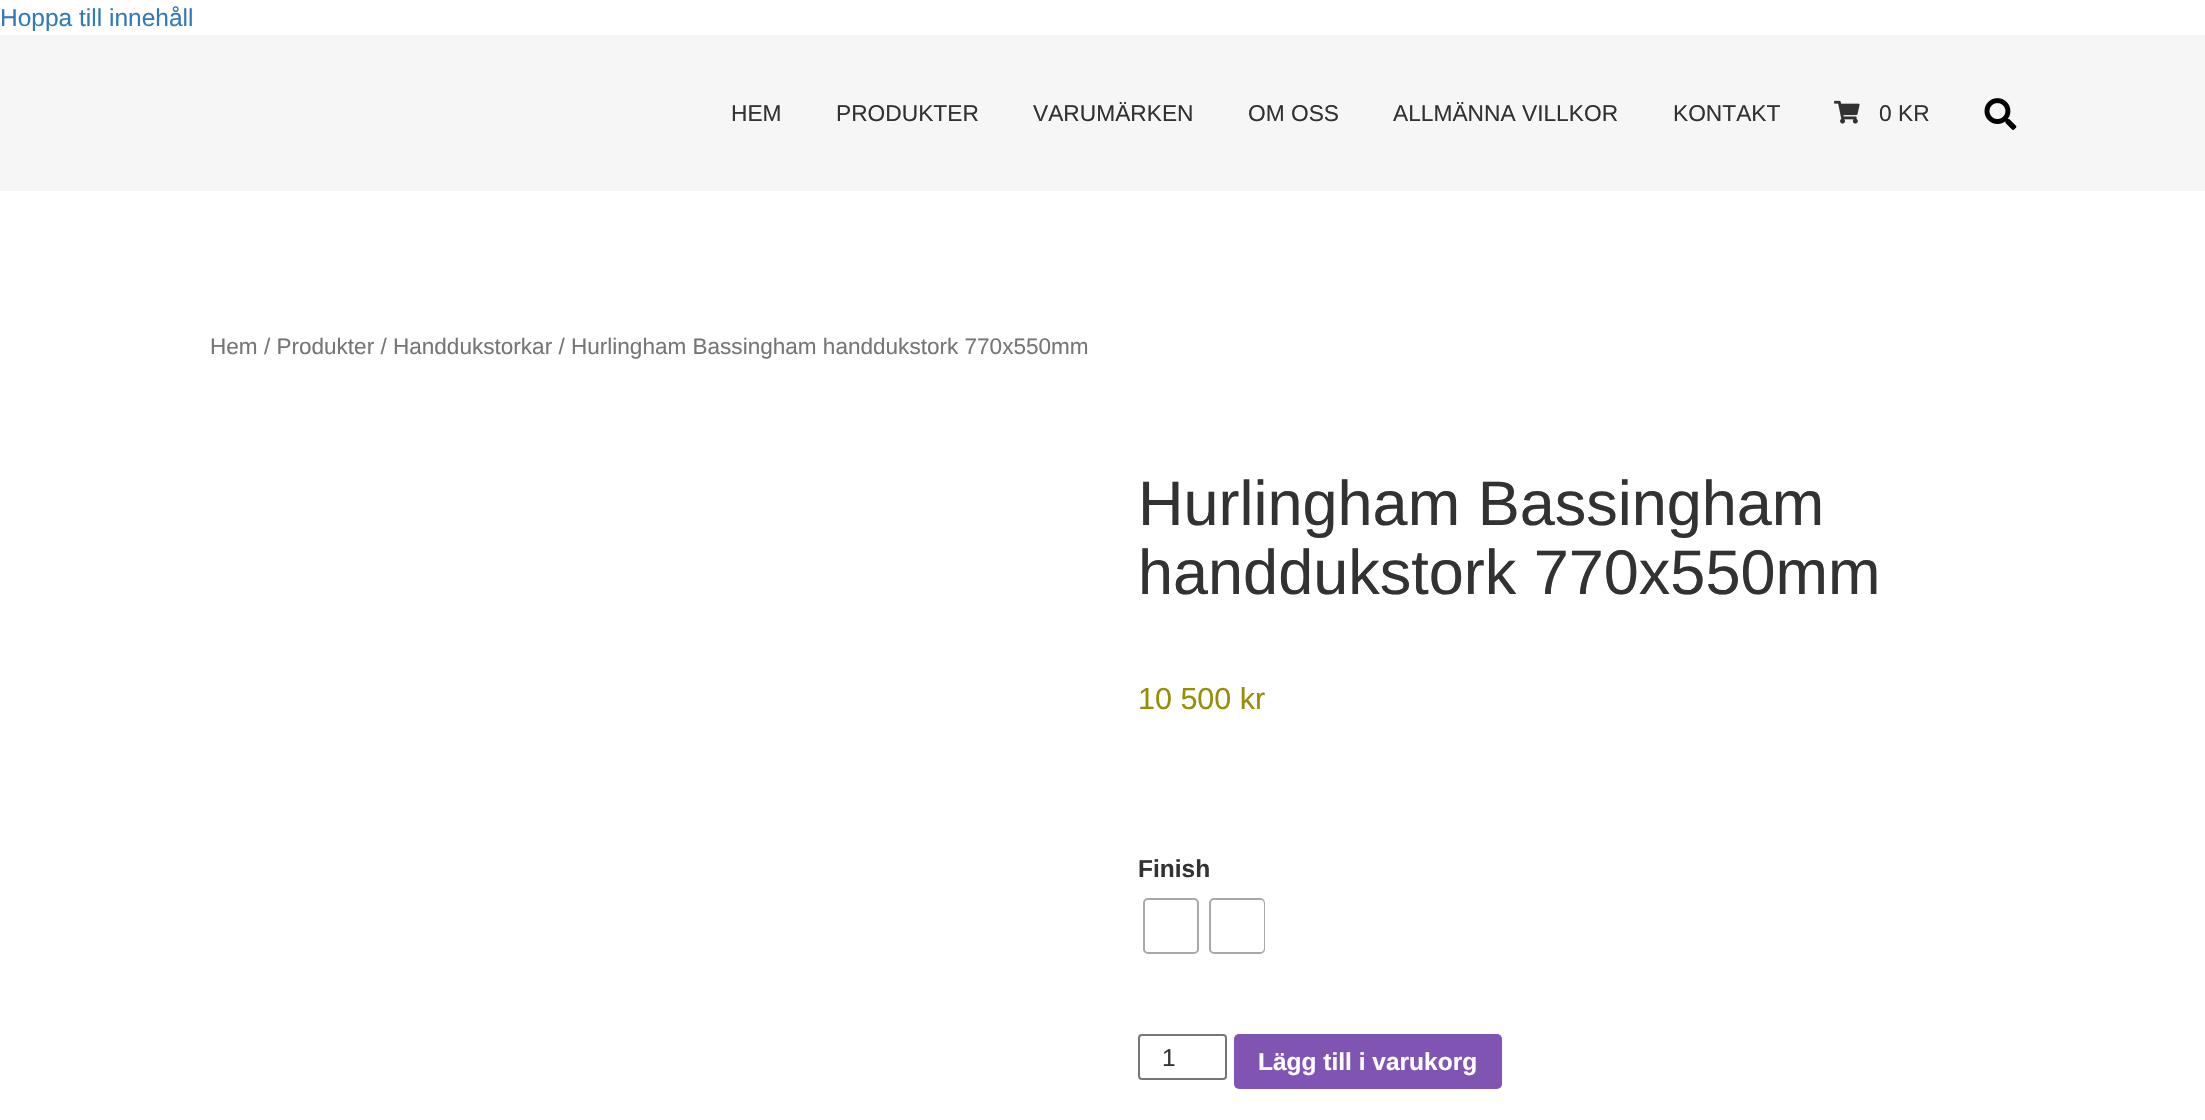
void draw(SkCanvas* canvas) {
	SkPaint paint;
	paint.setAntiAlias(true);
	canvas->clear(0xffffffff);
	SkFont f1(fontMgr->matchFamilyStyle("Liberation Sans", SkFontStyle::Normal()), 24.5);
	f1.setSubpixel(true);
	paint.setColor(0xff337ab7);
	canvas->drawString("Hoppa till innehåll", 0, 26, f1, paint);
	paint.setColor(0xfff6f6f6);
	canvas->drawRect(SkRect::MakeXYWH(0, 35, 2205, 156), paint);
	SkFont f2(fontMgr->matchFamilyStyle("Liberation Sans", SkFontStyle::Normal()), 22.75);
	f2.setSubpixel(true);
	paint.setColor(0xff323232);
	canvas->drawString("HEM", 731, 121, f2, paint);
	canvas->drawString("PRODUKTER", 836, 121, f2, paint);
	canvas->drawString("VARUMÄRKEN", 1033, 121, f2, paint);
	canvas->drawString("OM OSS", 1248, 121, f2, paint);
	canvas->drawString("ALLMÄNNA VILLKOR", 1393, 121, f2, paint);
	canvas->drawString("KONTAKT", 1673, 121, f2, paint);
	canvas->drawImageRect(SkImages::DeferredFromEncodedData(SkData::MakeFromFileName("img1.png")), SkRect::MakeXYWH(1834, 100, 26, 24), SkSamplingOptions());
	canvas->drawString("0 KR", 1879, 121, f2, paint);
	canvas->drawImageRect(SkImages::DeferredFromEncodedData(SkData::MakeFromFileName("img2.png")), SkRect::MakeXYWH(1984, 98, 33, 32), SkSamplingOptions());
	SkFont f3(fontMgr->matchFamilyStyle("Liberation Sans", SkFontStyle::Normal()), 22.55);
	f3.setSubpixel(true);
	paint.setColor(0xff767676);
	canvas->drawString("Hem / Produkter / Handdukstorkar / Hurlingham Bassingham handdukstork 770x550mm", 210, 354, f3, paint);
	SkFont f4(fontMgr->matchFamilyStyle("Liberation Sans", SkFontStyle::Normal()), 63);
	f4.setSubpixel(true);
	paint.setColor(0xff323232);
	canvas->drawString("Hurlingham Bassingham", 1138, 525, f4, paint);
	canvas->drawString("handdukstork 770x550mm", 1138, 594, f4, paint);
	SkFont f5(fontMgr->matchFamilyStyle("Liberation Sans", SkFontStyle::Normal()), 30.5);
	f5.setSubpixel(true);
	paint.setColor(0xff958e09);
	canvas->drawString("10 500 kr", 1138, 709, f5, paint);
	SkFont f6(fontMgr->matchFamilyStyle("Liberation Sans", SkFontStyle::Bold()), 24.5);
	f6.setSubpixel(true);
	paint.setColor(0xff323232);
	canvas->drawString("Finish", 1138, 877, f6, paint);
	paint.setStroke(true);
	paint.setStrokeWidth(2);
	paint.setColor(0xffa8a8a8);
	canvas->drawRoundRect(SkRect::MakeXYWH(1144, 899, 54, 54), 4, 4, paint);
	paint.setStroke(false);
	paint.setColor(0xffffffff);
	canvas->drawRoundRect(SkRect::MakeXYWH(1145, 900, 52, 52), 4, 4, paint);
	paint.setStroke(true);
	paint.setColor(0xffa8a8a8);
	canvas->drawRoundRect(SkRect::MakeXYWH(1210, 899, 54, 54), 4, 4, paint);
	paint.setStroke(false);
	paint.setColor(0xffffffff);
	canvas->drawRoundRect(SkRect::MakeXYWH(1211, 900, 53, 52), 4, 4, paint);
	paint.setStroke(true);
	paint.setColor(0xff767676);
	canvas->drawRoundRect(SkRect::MakeXYWH(1139, 1035, 87, 44), 3, 3, paint);
	paint.setStroke(false);
	paint.setColor(0xff323232);
	canvas->drawString("1", 1162, 1066, f1, paint);
	paint.setColor(0xff7f54b3);
	canvas->drawRoundRect(SkRect::MakeXYWH(1234, 1034, 268, 55), 5, 5, paint);
	paint.setColor(0xffffffff);
	canvas->drawString("Lägg till i varukorg", 1258, 1070, f6, paint);
}
